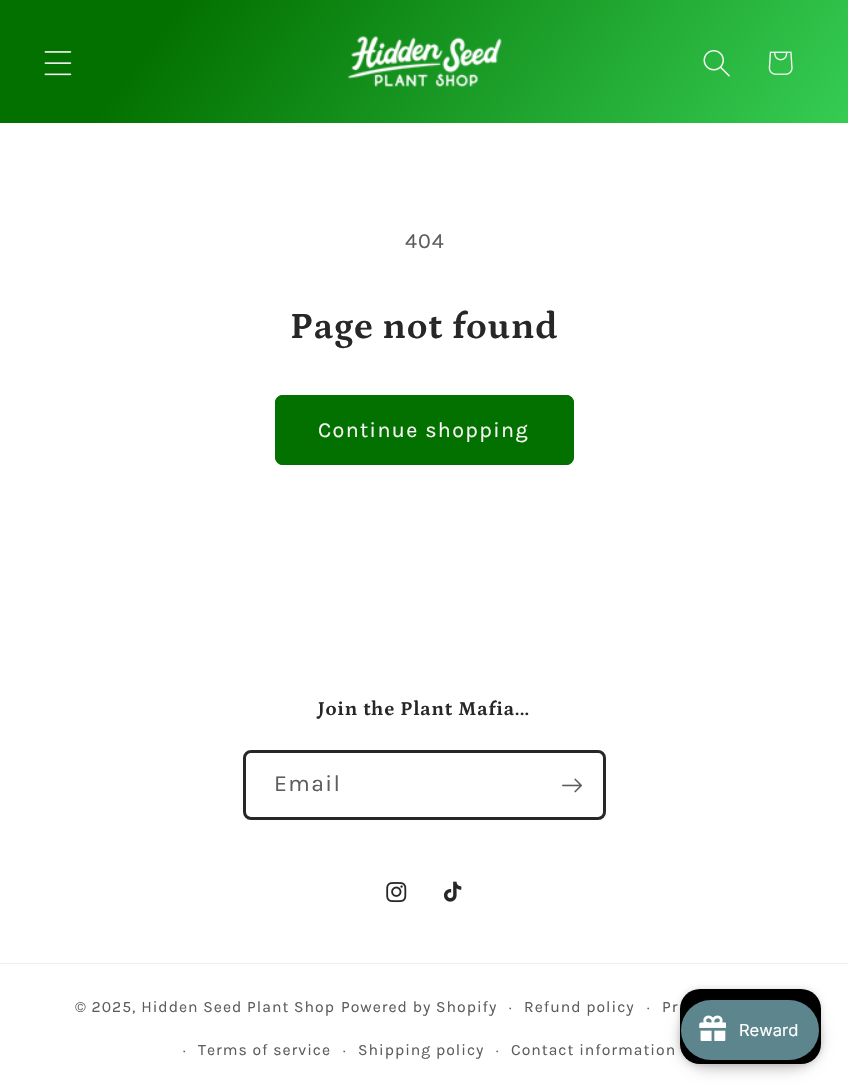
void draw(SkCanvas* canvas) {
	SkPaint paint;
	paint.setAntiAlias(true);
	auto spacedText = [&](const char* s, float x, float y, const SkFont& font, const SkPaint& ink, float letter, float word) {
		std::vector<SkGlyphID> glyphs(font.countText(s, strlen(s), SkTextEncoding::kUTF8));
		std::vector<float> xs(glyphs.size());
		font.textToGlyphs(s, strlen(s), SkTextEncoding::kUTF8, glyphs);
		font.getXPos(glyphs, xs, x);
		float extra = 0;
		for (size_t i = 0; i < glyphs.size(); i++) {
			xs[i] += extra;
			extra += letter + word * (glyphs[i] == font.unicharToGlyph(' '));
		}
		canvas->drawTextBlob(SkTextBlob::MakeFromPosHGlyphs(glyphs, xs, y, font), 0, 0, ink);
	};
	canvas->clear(0xffffffff);
	{
		const SkColor colors[] = {0xff037100, 0xff51fe81};
		const float stops[] = {0.11, 0.81};
		const SkPoint ends[] = {{-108, 144}, {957, 946}};
		paint.setShader(SkGradientShader::MakeLinear(ends, colors, stops, 2, SkTileMode::kClamp));
		paint.setAlpha(255);
	}
	canvas->drawRect(SkRect::MakeXYWH(0, 0, 848, 123), paint);
	canvas->drawImageRect(SkImages::DeferredFromEncodedData(SkData::MakeFromFileName("img1.png")), SkRect::MakeXYWH(44, 51, 28, 25), SkSamplingOptions());
	canvas->drawImageRect(SkImages::DeferredFromEncodedData(SkData::MakeFromFileName("img2.png")), SkRect::MakeXYWH(347, 36, 155, 51), SkSamplingOptions());
	canvas->drawImageRect(SkImages::DeferredFromEncodedData(SkData::MakeFromFileName("img3.png")), SkRect::MakeXYWH(703, 50, 27, 27), SkSamplingOptions());
	canvas->drawImageRect(SkImages::DeferredFromEncodedData(SkData::MakeFromFileName("img4.png")), SkRect::MakeXYWH(768, 51, 25, 24), SkSamplingOptions());
	SkFont f1(fontMgr->matchFamilyStyle("Karla", SkFontStyle::Normal()), 21.5);
	f1.setSubpixel(true);
	paint.setShader(nullptr);
	paint.setColor(0xff5d5d5d);
	spacedText("404", 405, 248, f1, paint, 1, 0);
	SkFont f2(fontMgr->matchFamilyStyle("Petrona", SkFontStyle::Bold()), 37.5);
	f2.setSubpixel(true);
	paint.setColor(0xff272727);
	spacedText("Page not found", 290, 338, f2, paint, 0.75, 0);
	paint.setColor(0xff037100);
	canvas->drawRoundRect(SkRect::MakeXYWH(275, 395, 299, 70), 8, 8, paint);
	paint.setStroke(true);
	paint.setStrokeWidth(3);
	canvas->drawRoundRect(SkRect::MakeXYWH(276.5, 396.5, 296, 67), 6.5, 6.5, paint);
	paint.setStroke(false);
	paint.setColor(0xfff7f5f3);
	spacedText("Continue shopping", 318, 437, f1, paint, 1.4, 0);
	SkFont f3(fontMgr->matchFamilyStyle("Petrona", SkFontStyle::Bold()), 20);
	f3.setSubpixel(true);
	paint.setColor(0xff272727);
	spacedText("Join the Plant Mafia...", 318, 715, f3, paint, 0.75, 0);
	paint.setStroke(true);
	canvas->drawRoundRect(SkRect::MakeXYWH(244.5, 751.5, 360, 67), 6.5, 6.5, paint);
	SkFont f4(fontMgr->matchFamilyStyle("Karla", SkFontStyle::Normal()), 23);
	f4.setSubpixel(true);
	paint.setStroke(false);
	paint.setColor(0xff5d5d5d);
	spacedText("Email", 274, 791, f4, paint, 1.4, 0);
	canvas->drawImageRect(SkImages::DeferredFromEncodedData(SkData::MakeFromFileName("img5.png")), SkRect::MakeXYWH(562, 778, 20, 15), SkSamplingOptions());
	canvas->drawImageRect(SkImages::DeferredFromEncodedData(SkData::MakeFromFileName("img6.png")), SkRect::MakeXYWH(386, 882, 21, 21), SkSamplingOptions());
	canvas->drawImageRect(SkImages::DeferredFromEncodedData(SkData::MakeFromFileName("img7.png")), SkRect::MakeXYWH(443, 881, 19, 21), SkSamplingOptions());
	paint.setColor(0xffeeeeee);
	canvas->drawRect(SkRect::MakeXYWH(0, 963, 848, 1), paint);
	SkFont f5(fontMgr->matchFamilyStyle("Karla", SkFontStyle::Normal()), 15.75);
	f5.setSubpixel(true);
	paint.setColor(0xff5d5d5d);
	spacedText("© 2025, Hidden Seed Plant Shop", 75, 1012, f5, paint, 1, 0);
	SkFont f6(fontMgr->matchFamilyStyle("Karla", SkFontStyle::Normal()), 14);
	f6.setSubpixel(true);
	spacedText("·", 509, 1012, f6, paint, 1, 0);
	spacedText("Refund policy", 524, 1012, f5, paint, 1, 0);
	spacedText("·", 647, 1012, f6, paint, 1, 0);
	spacedText("Pr", 662, 1012, f5, paint, 1, 0);
	spacedText("·", 183, 1055, f6, paint, 1, 0);
	spacedText("Terms of service", 198, 1055, f5, paint, 1, 0);
	spacedText("·", 343, 1055, f6, paint, 1, 0);
	spacedText("Shipping policy", 358, 1055, f5, paint, 1, 0);
	spacedText("·", 496, 1055, f6, paint, 1, 0);
	spacedText("Contact information", 511, 1055, f5, paint, 1, 0);
	spacedText("Powered by Shopify", 341, 1012, f5, paint, 1, 0);
	paint.setColor(0x26000000);
	paint.setMaskFilter(SkMaskFilter::MakeBlur(kNormal_SkBlurStyle, 3));
	canvas->drawRoundRect(SkRect::MakeXYWH(680, 989, 141, 75), 20, 20, paint);
	paint.setMaskFilter(nullptr);
	paint.setColor(0xff000000);
	canvas->drawRoundRect(SkRect::MakeXYWH(680, 989, 141, 75), 20, 20, paint);
	paint.setColor(0x40000000);
	paint.setMaskFilter(SkMaskFilter::MakeBlur(kNormal_SkBlurStyle, 7.5));
	canvas->drawRoundRect(SkRect::MakeXYWH(681, 1008, 138, 60), 30, 30, paint);
	paint.setMaskFilter(nullptr);
	paint.setColor(0xff5c858d);
	canvas->drawRoundRect(SkRect::MakeXYWH(681, 1000, 138, 60), 30, 30, paint);
	canvas->drawImageRect(SkImages::DeferredFromEncodedData(SkData::MakeFromFileName("img8.png")), SkRect::MakeXYWH(699, 1015, 27, 26), SkSamplingOptions());
	SkFont f7(fontMgr->matchFamilyStyle("Inter", SkFontStyle::Normal()), 16.5);
	f7.setSubpixel(true);
	paint.setColor(0xffffffff);
	canvas->drawString("Reward", 739, 1036, f7, paint);
}
